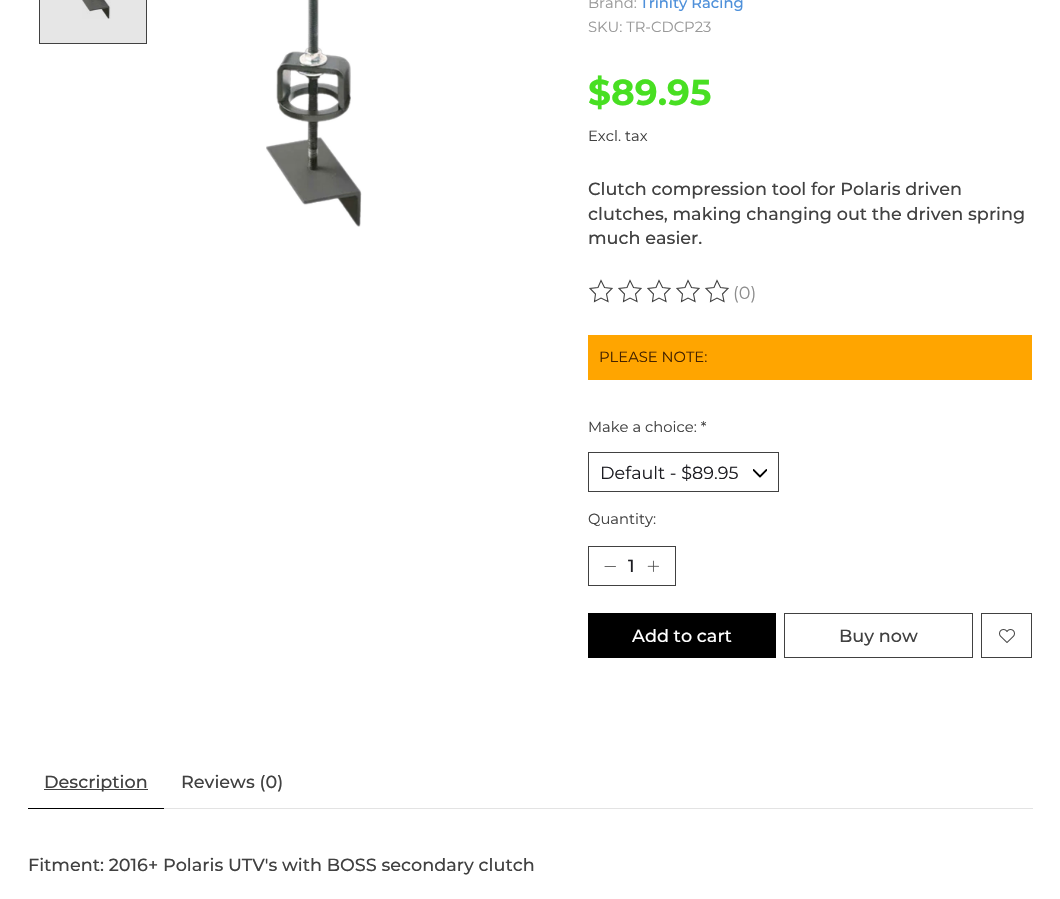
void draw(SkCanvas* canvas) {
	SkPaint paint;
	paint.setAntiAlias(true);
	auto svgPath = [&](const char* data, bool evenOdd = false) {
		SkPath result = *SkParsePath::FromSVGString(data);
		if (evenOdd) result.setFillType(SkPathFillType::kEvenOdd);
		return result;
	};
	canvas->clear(0xffffffff);
	paint.setColor(0xffe6e6e6);
	canvas->drawRect(SkRect::MakeXYWH(40, 0, 106, 43), paint);
	canvas->drawImageRect(SkImages::DeferredFromEncodedData(SkData::MakeFromFileName("img1.png")), SkRect::MakeXYWH(82, 0, 29, 19), SkSamplingOptions());
	paint.setStroke(true);
	paint.setStrokeWidth(1);
	paint.setColor(0xff414141);
	canvas->drawRect(SkRect::MakeXYWH(39.5, -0.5, 107, 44), paint);
	canvas->drawImageRect(SkImages::DeferredFromEncodedData(SkData::MakeFromFileName("img2.png")), SkRect::MakeXYWH(266, 0, 96, 227), SkSamplingOptions());
	SkFont f1(fontMgr->matchFamilyStyle("Montserrat", SkFontStyle::Normal()), 14.75);
	f1.setSubpixel(true);
	paint.setStroke(false);
	paint.setColor(0xff999999);
	canvas->drawString("Brand:", 588, 8, f1, paint);
	SkFont f2(fontMgr->matchFamilyStyle("Montserrat", SkFontStyle(500, SkFontStyle::kNormal_Width, SkFontStyle::kUpright_Slant)), 14.75);
	f2.setSubpixel(true);
	paint.setColor(0xff4e90da);
	canvas->drawString("Trinity Racing", 640, 8, f2, paint);
	paint.setColor(0xff999999);
	canvas->drawString("SKU: TR-CDCP23", 588, 32, f1, paint);
	SkFont f3(fontMgr->matchFamilyStyle("Montserrat", SkFontStyle::Bold()), 36);
	f3.setSubpixel(true);
	paint.setColor(0xff48df22);
	canvas->drawString("$89.95", 588, 105, f3, paint);
	paint.setColor(0xff414141);
	canvas->drawString("Excl. tax", 588, 141, f1, paint);
	SkFont f4(fontMgr->matchFamilyStyle("Montserrat", SkFontStyle(500, SkFontStyle::kNormal_Width, SkFontStyle::kUpright_Slant)), 17.6);
	f4.setSubpixel(true);
	canvas->drawString("Clutch compression tool for Polaris driven", 588, 195, f4, paint);
	canvas->drawString("clutches, making changing out the driven spring", 588, 220, f4, paint);
	canvas->drawString("much easier.", 588, 244, f4, paint);
	paint.setStroke(true);
	paint.setStrokeWidth(1.1);
	canvas->drawPath(svgPath("M601 280.5L604.5 287.5L612 288.5L606.5 294L608 301.5L601 298L594.5 301.5L595.5 294L590 288.5L598 287.5ZM630 280.5L633.5 287.5L641 288.5L635.5 294L637 301.5L630 298L623.5 301.5L624.5 294L619 288.5L627 287.5Z"), paint);
	canvas->drawPath(svgPath("M659 280.5L662.5 287.5L670 288.5L664.5 294L666 301.5L659 298L652.5 301.5L653.5 294L648 288.5L656 287.5ZM688 280.5L691.5 287.5L699 288.5L693.5 294L695 301.5L688 298L681.5 301.5L682.5 294L677 288.5L685 287.5Z"), paint);
	canvas->drawPath(svgPath("M717 280.5L720.5 287.5L728 288.5L722.5 294L724 301.5L717 298L710.5 301.5L711.5 294L706 288.5L714 287.5Z"), paint);
	SkFont f5(fontMgr->matchFamilyStyle("Montserrat", SkFontStyle::Normal()), 17.6);
	f5.setSubpixel(true);
	paint.setStroke(false);
	paint.setColor(0xff8d8d8d);
	canvas->drawString("(0)", 733, 299, f5, paint);
	paint.setColor(0xffffa500);
	canvas->drawRect(SkRect::MakeXYWH(588, 335, 444, 45), paint);
	paint.setColor(0xff442200);
	canvas->drawString("PLEASE NOTE:", 599, 362, f1, paint);
	paint.setColor(0xff414141);
	canvas->drawString("Make a choice: *", 588, 432, f1, paint);
	canvas->save();
	canvas->clipRect(SkRect::MakeXYWH(753, 466, 14, 14));
	paint.setStroke(true);
	paint.setStrokeWidth(1.8);
	paint.setStrokeCap(SkPaint::kRound_Cap);
	paint.setStrokeJoin(SkPaint::kRound_Join);
	paint.setColor(0xff000000);
	canvas->drawPath(svgPath("M766.5 470L760 476.5L753.5 470"), paint);
	canvas->restore();
	paint.setStrokeWidth(1);
	paint.setStrokeCap(SkPaint::kButt_Cap);
	paint.setStrokeJoin(SkPaint::kMiter_Join);
	paint.setColor(0xff414141);
	canvas->drawRect(SkRect::MakeXYWH(588.5, 452.5, 190, 39), paint);
	paint.setStroke(false);
	paint.setColor(0xff1c1c21);
	canvas->drawString("Default - $89.95", 600, 479, f5, paint);
	paint.setColor(0xff414141);
	canvas->drawString("Quantity:", 588, 524, f1, paint);
	paint.setStroke(true);
	canvas->drawRect(SkRect::MakeXYWH(588.5, 546.5, 87, 39), paint);
	paint.setStrokeWidth(0.8);
	paint.setStrokeCap(SkPaint::kRound_Cap);
	paint.setStrokeJoin(SkPaint::kRound_Join);
	canvas->drawPath(svgPath("M605 566.5H615.5"), paint);
	paint.setStroke(false);
	paint.setColor(0xff1c1c21);
	canvas->drawString("1", 628, 572, f4, paint);
	canvas->drawImageRect(SkImages::DeferredFromEncodedData(SkData::MakeFromFileName("img3.png")), SkRect::MakeXYWH(647, 560, 12, 12), SkSamplingOptions());
	paint.setColor(0xff000000);
	canvas->drawRect(SkRect::MakeXYWH(588, 613, 188, 45), paint);
	paint.setColor(0xffffffff);
	canvas->drawString("Add to cart", 632, 642, f4, paint);
	paint.setStroke(true);
	paint.setStrokeWidth(1);
	paint.setStrokeCap(SkPaint::kButt_Cap);
	paint.setStrokeJoin(SkPaint::kMiter_Join);
	paint.setColor(0xff414141);
	canvas->drawRect(SkRect::MakeXYWH(784.5, 613.5, 188, 44), paint);
	paint.setStroke(false);
	canvas->drawString("Buy now", 839, 642, f4, paint);
	paint.setStroke(true);
	canvas->drawRect(SkRect::MakeXYWH(981.5, 613.5, 50, 44), paint);
	canvas->drawImageRect(SkImages::DeferredFromEncodedData(SkData::MakeFromFileName("img4.png")), SkRect::MakeXYWH(999, 629, 16, 14), SkSamplingOptions());
	paint.setStroke(false);
	paint.setColor(0xff000000);
	canvas->drawRect(SkRect::MakeXYWH(28, 808, 136, 1), paint);
	paint.setColor(0xff414141);
	canvas->drawRect(SkRect::MakeXYWH(44, 789, 104, 1), paint);
	canvas->drawString("Description", 44, 788, f4, paint);
	canvas->drawString("Reviews (0)", 181, 788, f4, paint);
	paint.setColor(0xffe3e3e3);
	canvas->drawRect(SkRect::MakeXYWH(164, 808, 869, 1), paint);
	paint.setColor(0xff414141);
	canvas->drawString("Fitment: 2016+ Polaris UTV's with BOSS secondary clutch", 28, 871, f4, paint);
}
